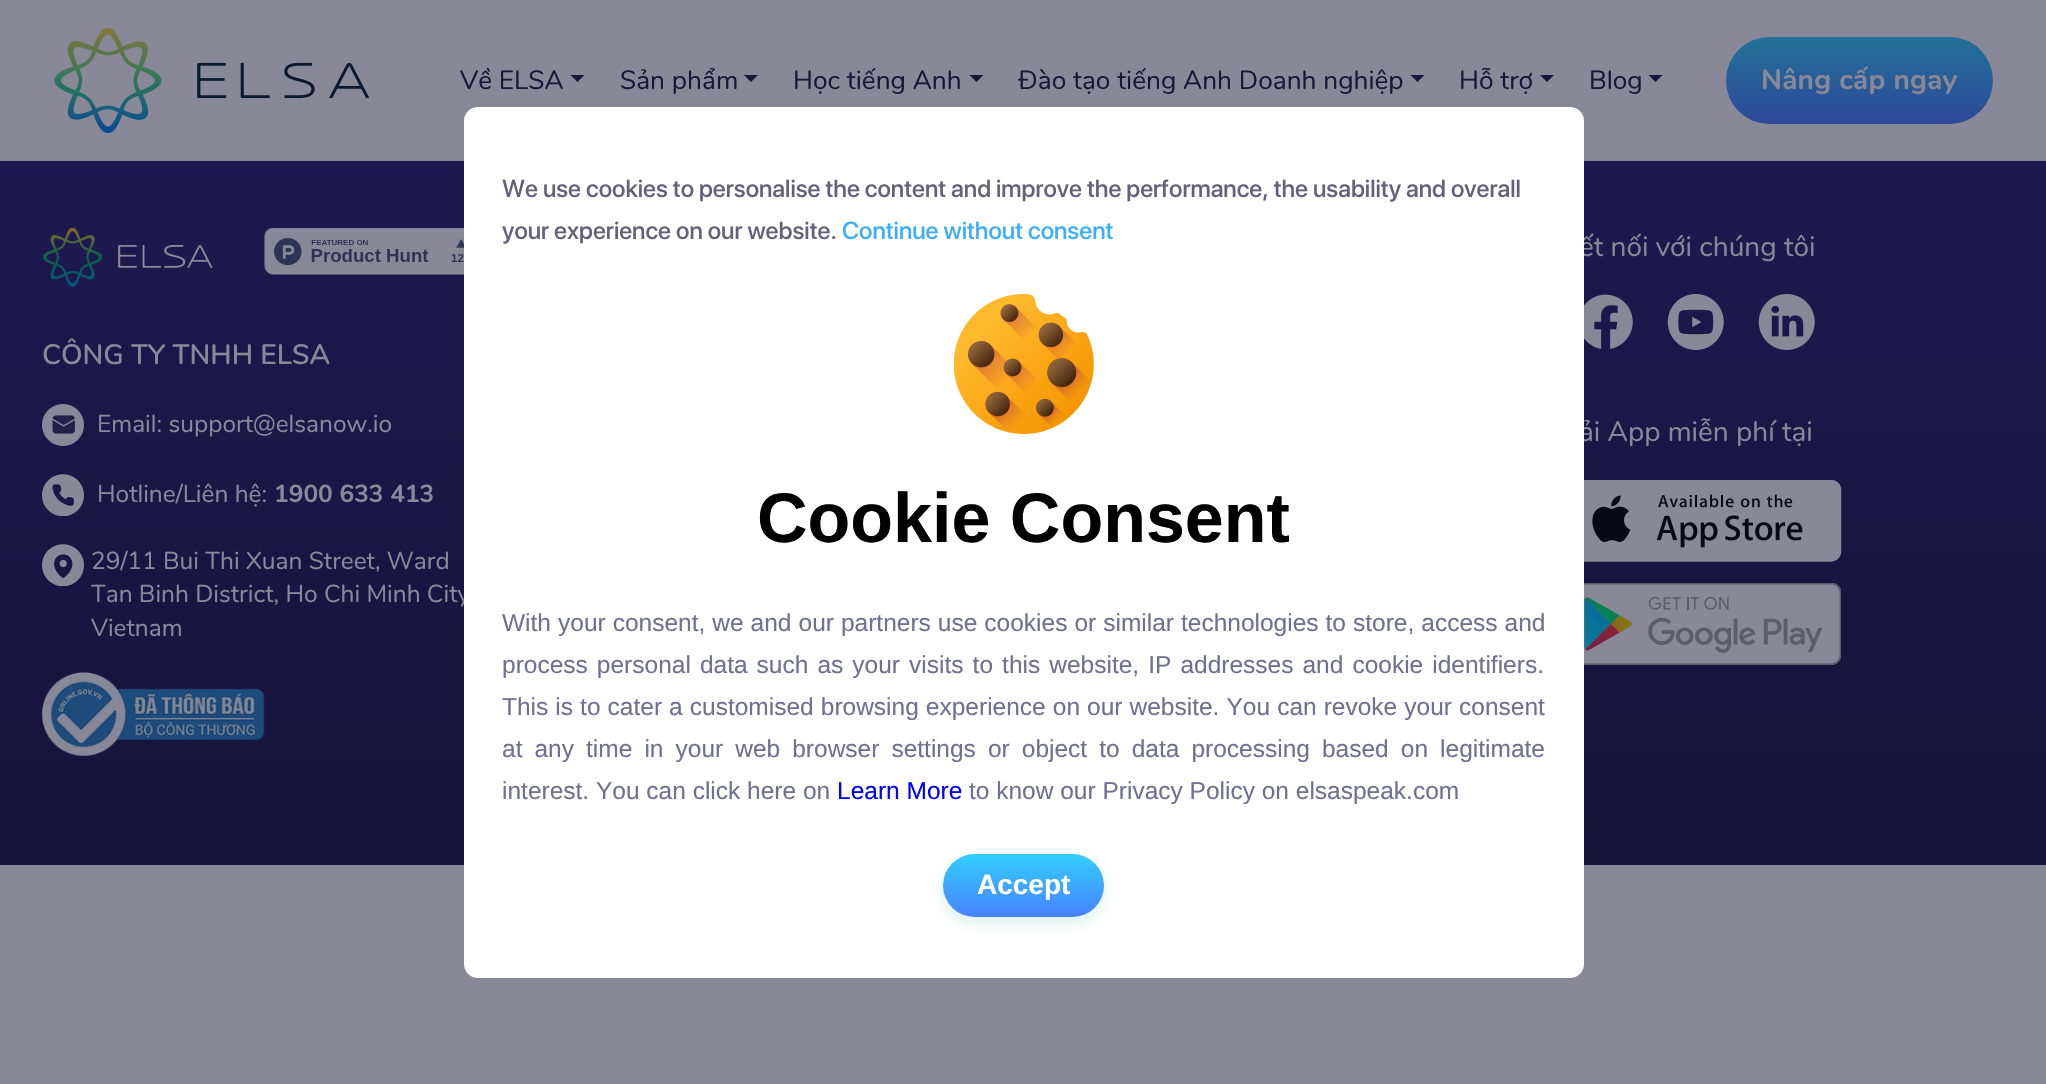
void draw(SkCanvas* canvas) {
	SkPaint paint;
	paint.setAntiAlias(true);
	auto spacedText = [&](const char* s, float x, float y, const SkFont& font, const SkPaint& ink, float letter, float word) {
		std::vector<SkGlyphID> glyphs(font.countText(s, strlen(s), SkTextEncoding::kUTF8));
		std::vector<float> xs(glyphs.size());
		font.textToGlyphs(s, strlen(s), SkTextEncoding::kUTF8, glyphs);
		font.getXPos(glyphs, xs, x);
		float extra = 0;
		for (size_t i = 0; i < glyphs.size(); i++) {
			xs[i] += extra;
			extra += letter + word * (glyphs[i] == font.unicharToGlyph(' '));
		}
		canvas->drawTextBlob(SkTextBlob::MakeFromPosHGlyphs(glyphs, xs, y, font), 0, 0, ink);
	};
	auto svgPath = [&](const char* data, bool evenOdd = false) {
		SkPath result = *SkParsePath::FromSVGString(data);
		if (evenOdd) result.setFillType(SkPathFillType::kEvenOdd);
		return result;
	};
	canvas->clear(0xff898898);
	canvas->drawImageRect(SkImages::DeferredFromEncodedData(SkData::MakeFromFileName("img1.png")), SkRect::MakeXYWH(54, 28, 315, 105), SkSamplingOptions());
	SkFont f1(fontMgr->matchFamilyStyle("Nunito", SkFontStyle::Normal()), 26.25);
	f1.setSubpixel(true);
	paint.setColor(0xff19173b);
	canvas->drawString("Về ELSA", 460, 89, f1, paint);
	canvas->drawPath(svgPath("M570.5 75H584.5L577.5 82Z"), paint);
	canvas->drawString("Sản phẩm", 620, 89, f1, paint);
	canvas->drawPath(svgPath("M744 75H758L751 82Z"), paint);
	canvas->drawString("Học tiếng Anh", 793, 89, f1, paint);
	canvas->drawPath(svgPath("M969.5 75H983.5L976.5 82Z"), paint);
	canvas->drawString("Đào tạo tiếng Anh Doanh nghiệp", 1018, 89, f1, paint);
	canvas->drawPath(svgPath("M1410.5 75H1424.5L1417.5 82Z"), paint);
	canvas->drawString("Hỗ trợ", 1459, 89, f1, paint);
	canvas->drawPath(svgPath("M1540 75H1554L1547 82Z"), paint);
	canvas->drawString("Blog", 1589, 89, f1, paint);
	canvas->drawPath(svgPath("M1648.5 75H1662.5L1655.5 82Z"), paint);
	{
		const SkColor colors[] = {0xff1e8398, 0xff323498};
		const float stops[] = {0, 1};
		const SkPoint ends[] = {{1859, -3.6}, {1859, 170}};
		paint.setShader(SkGradientShader::MakeLinear(ends, colors, stops, 2, SkTileMode::kClamp));
		paint.setAlpha(255);
	}
	canvas->drawRoundRect(SkRect::MakeXYWH(1726, 37, 267, 87), 43.5, 43.5, paint);
	SkFont f2(fontMgr->matchFamilyStyle("Nunito", SkFontStyle::Bold()), 28);
	f2.setSubpixel(true);
	paint.setShader(nullptr);
	paint.setColor(0xff898898);
	spacedText("Nâng cấp ngay", 1761, 89, f2, paint, 0.25, 0);
	{
		const SkColor colors[] = {0xff1e1950, 0xff100f2d};
		const float stops[] = {0, 1};
		const SkPoint ends[] = {{1023, 158}, {1026, 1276}};
		paint.setShader(SkGradientShader::MakeLinear(ends, colors, stops, 2, SkTileMode::kClamp));
		paint.setAlpha(255);
	}
	canvas->drawRect(SkRect::MakeXYWH(0, 161, 2046, 704), paint);
	SkFont f3(fontMgr->matchFamilyStyle("Nunito", SkFontStyle::Normal()), 24.5);
	f3.setSubpixel(true);
	paint.setShader(nullptr);
	paint.setColor(0xff898898);
	canvas->drawString("Tan Binh District, Ho Chi Minh City", 91, 602, f3, paint);
	SkFont f4(fontMgr->matchFamilyStyle("Nunito", SkFontStyle::Normal()), 28);
	f4.setSubpixel(true);
	canvas->drawString("ết nối với chúng tôi", 1579, 256, f4, paint);
	canvas->drawString("ải App miễn phí tại", 1579, 441, f4, paint);
	paint.setColor(0xffffffff);
	canvas->drawRoundRect(SkRect::MakeXYWH(464, 107, 1120, 871), 14, 14, paint);
	SkFont f5(fontMgr->matchFamilyStyle("SF Pro Display", SkFontStyle(500, SkFontStyle::kNormal_Width, SkFontStyle::kUpright_Slant)), 24.5);
	f5.setSubpixel(true);
	paint.setColor(0xff62617c);
	canvas->drawString("We use cookies to personalise the content and improve the performance, the usability and overall", 502, 197, f5, paint);
	canvas->drawString("your experience on our website.", 502, 239, f5, paint);
	paint.setColor(0xff3cadff);
	canvas->drawString("Continue without consent", 842, 239, f5, paint);
	canvas->drawImageRect(SkImages::DeferredFromEncodedData(SkData::MakeFromFileName("img2.png")), SkRect::MakeXYWH(954, 294, 140, 140), SkSamplingOptions());
	SkFont f6(fontMgr->matchFamilyStyle("Liberation Sans", SkFontStyle::Bold()), 70);
	f6.setSubpixel(true);
	paint.setColor(0xff000000);
	canvas->drawString("Cookie Consent", 757, 542, f6, paint);
	SkFont f7(fontMgr->matchFamilyStyle("Liberation Sans", SkFontStyle::Normal()), 24.5);
	f7.setSubpixel(true);
	paint.setColor(0xff6e7191);
	spacedText("With your consent, we and our partners use cookies or similar technologies to store, access and", 502, 631, f7, paint, 0, 0.2);
	spacedText("process personal data such as your visits to this website, IP addresses and cookie identifiers.", 502, 673, f7, paint, 0, 2.25);
	spacedText("This is to cater a customised browsing experience on our website. You can revoke your consent", 502, 715, f7, paint, 0, 0.25);
	spacedText("at any time in your web browser settings or object to data processing based on legitimate", 502, 757, f7, paint, 0, 5.25);
	canvas->drawString("interest. You can click here on", 502, 799, f7, paint);
	paint.setColor(0xff0000ff);
	canvas->drawString("Learn More", 837, 799, f7, paint);
	paint.setColor(0xff6e7191);
	canvas->drawString("to know our Privacy Policy on elsaspeak.com", 969, 799, f7, paint);
	paint.setColor(0x292aad86);
	paint.setMaskFilter(SkMaskFilter::MakeBlur(kNormal_SkBlurStyle, 7));
	canvas->drawRoundRect(SkRect::MakeXYWH(943, 861, 161, 63), 31.5, 31.5, paint);
	paint.setMaskFilter(nullptr);
	{
		const SkColor colors[] = {0xff29f4ff, 0xff5257ff};
		const float stops[] = {0, 1};
		const SkPoint ends[] = {{1024, 825}, {1024, 950}};
		paint.setShader(SkGradientShader::MakeLinear(ends, colors, stops, 2, SkTileMode::kClamp));
		paint.setAlpha(255);
	}
	canvas->drawRoundRect(SkRect::MakeXYWH(943, 854, 161, 63), 31.5, 31.5, paint);
	SkFont f8(fontMgr->matchFamilyStyle("Liberation Sans", SkFontStyle::Bold()), 28);
	f8.setSubpixel(true);
	paint.setShader(nullptr);
	paint.setColor(0xffffffff);
	canvas->drawString("Accept", 977, 894, f8, paint);
	canvas->drawImageRect(SkImages::DeferredFromEncodedData(SkData::MakeFromFileName("img3.png")), SkRect::MakeXYWH(42, 228, 171, 59), SkSamplingOptions());
	canvas->drawImageRect(SkImages::DeferredFromEncodedData(SkData::MakeFromFileName("img4.png")), SkRect::MakeXYWH(264, 228, 200, 47), SkSamplingOptions());
	SkFont f9(fontMgr->matchFamilyStyle("Nunito", SkFontStyle(600, SkFontStyle::kNormal_Width, SkFontStyle::kUpright_Slant)), 28);
	f9.setSubpixel(true);
	paint.setColor(0xff898898);
	canvas->drawString("CÔNG TY TNHH ELSA", 42, 364, f9, paint);
	canvas->drawImageRect(SkImages::DeferredFromEncodedData(SkData::MakeFromFileName("img5.png")), SkRect::MakeXYWH(42, 404, 42, 42), SkSamplingOptions());
	canvas->drawString("Email: support@elsanow.io", 97, 432, f3, paint);
	canvas->drawImageRect(SkImages::DeferredFromEncodedData(SkData::MakeFromFileName("img6.png")), SkRect::MakeXYWH(42, 474, 42, 42), SkSamplingOptions());
	canvas->drawString("Hotline/Liên hệ:", 97, 502, f3, paint);
	SkFont f10(fontMgr->matchFamilyStyle("Nunito", SkFontStyle::Bold()), 24.5);
	f10.setSubpixel(true);
	canvas->drawString("1900 633 413", 274, 502, f10, paint);
	canvas->drawImageRect(SkImages::DeferredFromEncodedData(SkData::MakeFromFileName("img7.png")), SkRect::MakeXYWH(42, 544, 42, 42), SkSamplingOptions());
	canvas->drawString("29/11 Bui Thi Xuan Street, Ward", 91, 569, f3, paint);
	canvas->drawString("Vietnam", 91, 636, f3, paint);
	canvas->drawImageRect(SkImages::DeferredFromEncodedData(SkData::MakeFromFileName("img8.png")), SkRect::MakeXYWH(42, 672, 223, 84), SkSamplingOptions());
	canvas->drawImageRect(SkImages::DeferredFromEncodedData(SkData::MakeFromFileName("img9.png")), SkRect::MakeXYWH(1584, 294, 49, 55), SkSamplingOptions());
	canvas->drawImageRect(SkImages::DeferredFromEncodedData(SkData::MakeFromFileName("img10.png")), SkRect::MakeXYWH(1667, 294, 57, 56), SkSamplingOptions());
	canvas->drawImageRect(SkImages::DeferredFromEncodedData(SkData::MakeFromFileName("img11.png")), SkRect::MakeXYWH(1758, 294, 57, 56), SkSamplingOptions());
	canvas->drawImageRect(SkImages::DeferredFromEncodedData(SkData::MakeFromFileName("img12.png")), SkRect::MakeXYWH(1584, 480, 258, 82), SkSamplingOptions());
	canvas->drawImageRect(SkImages::DeferredFromEncodedData(SkData::MakeFromFileName("img13.png")), SkRect::MakeXYWH(1584, 583, 257, 82), SkSamplingOptions());
}
